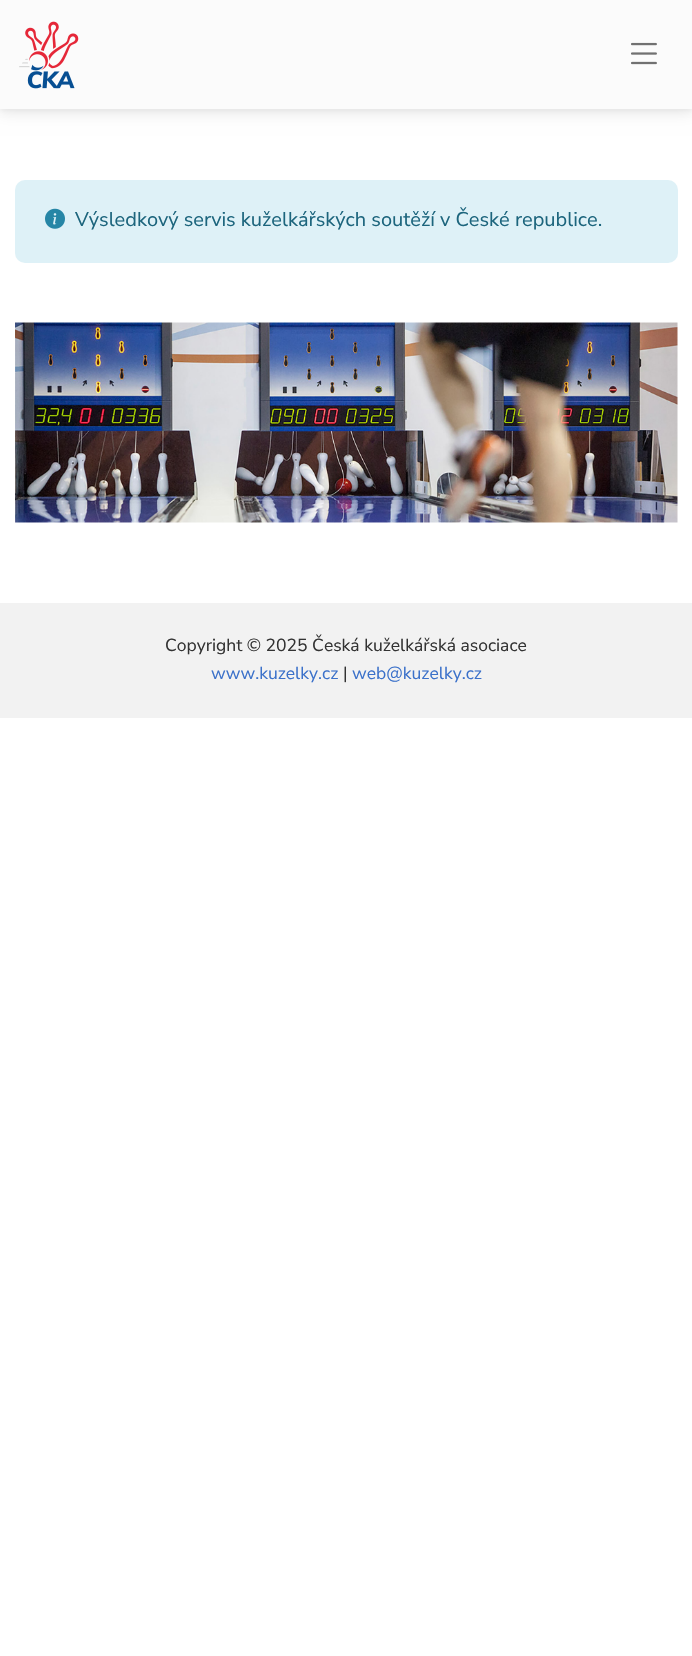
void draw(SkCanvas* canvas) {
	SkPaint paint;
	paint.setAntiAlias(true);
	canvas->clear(0xffffffff);
	paint.setColor(0x0d000000);
	paint.setMaskFilter(SkMaskFilter::MakeBlur(kNormal_SkBlurStyle, 2.5));
	canvas->drawRect(SkRect::MakeXYWH(0, 3, 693, 108), paint);
	paint.setMaskFilter(nullptr);
	paint.setColor(0x12000000);
	paint.setMaskFilter(SkMaskFilter::MakeBlur(kNormal_SkBlurStyle, 7.5));
	canvas->drawRect(SkRect::MakeXYWH(0, 5, 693, 109), paint);
	paint.setMaskFilter(nullptr);
	paint.setColor(0xfffbfbfb);
	canvas->drawRect(SkRect::MakeXYWH(0, 0, 692, 109), paint);
	canvas->drawImageRect(SkImages::DeferredFromEncodedData(SkData::MakeFromFileName("img1.png")), SkRect::MakeXYWH(19, 21, 60, 68), SkSamplingOptions());
	canvas->drawImageRect(SkImages::DeferredFromEncodedData(SkData::MakeFromFileName("img2.png")), SkRect::MakeXYWH(631, 42, 26, 23), SkSamplingOptions());
	paint.setColor(0xffdef1f7);
	canvas->drawRoundRect(SkRect::MakeXYWH(15, 180, 663, 83), 10, 10, paint);
	canvas->drawImageRect(SkImages::DeferredFromEncodedData(SkData::MakeFromFileName("img3.png")), SkRect::MakeXYWH(45, 208, 20, 21), SkSamplingOptions());
	SkFont f1(fontMgr->matchFamilyStyle("Nunito Sans", SkFontStyle::Normal()), 20);
	f1.setSubpixel(true);
	paint.setColor(0xff1c657d);
	canvas->drawString("Výsledkový servis kuželkářských soutěží v České republice.", 75, 226, f1, paint);
	canvas->drawImageRect(SkImages::DeferredFromEncodedData(SkData::MakeFromFileName("img4.png")), SkRect::MakeXYWH(15, 322, 663, 201), SkSamplingOptions());
	paint.setColor(0xfff2f2f2);
	canvas->drawRect(SkRect::MakeXYWH(0, 603, 692, 115), paint);
	SkFont f2(fontMgr->matchFamilyStyle("Nunito Sans", SkFontStyle::Normal()), 17.5);
	f2.setSubpixel(true);
	paint.setColor(0xff333333);
	canvas->drawString("Copyright © 2025 Česká kuželkářská asociace", 165, 651, f2, paint);
	paint.setColor(0xff3b71ca);
	canvas->drawString("www.kuzelky.cz", 211, 679, f2, paint);
	paint.setColor(0xff333333);
	canvas->drawString("|", 343, 679, f2, paint);
	paint.setColor(0xff3b71ca);
	canvas->drawString("web@kuzelky.cz", 352, 679, f2, paint);
}
